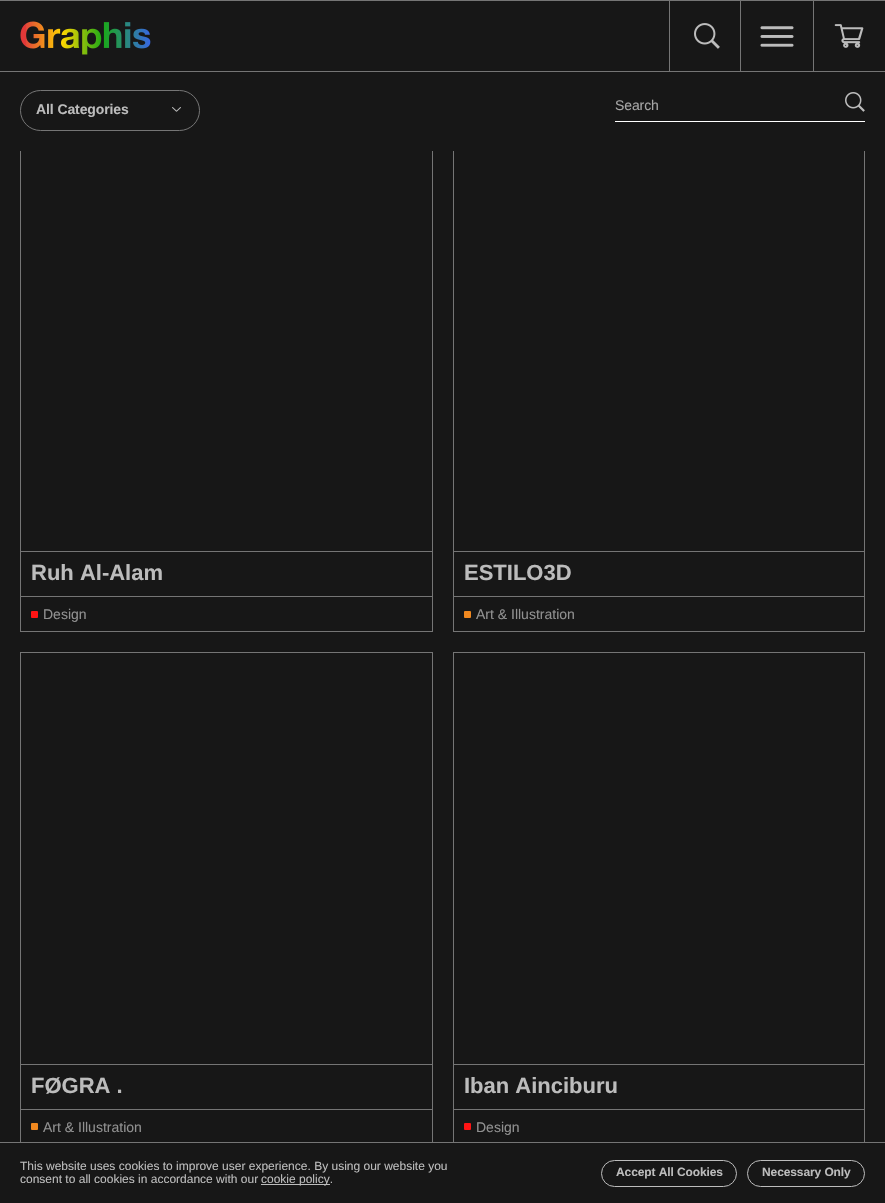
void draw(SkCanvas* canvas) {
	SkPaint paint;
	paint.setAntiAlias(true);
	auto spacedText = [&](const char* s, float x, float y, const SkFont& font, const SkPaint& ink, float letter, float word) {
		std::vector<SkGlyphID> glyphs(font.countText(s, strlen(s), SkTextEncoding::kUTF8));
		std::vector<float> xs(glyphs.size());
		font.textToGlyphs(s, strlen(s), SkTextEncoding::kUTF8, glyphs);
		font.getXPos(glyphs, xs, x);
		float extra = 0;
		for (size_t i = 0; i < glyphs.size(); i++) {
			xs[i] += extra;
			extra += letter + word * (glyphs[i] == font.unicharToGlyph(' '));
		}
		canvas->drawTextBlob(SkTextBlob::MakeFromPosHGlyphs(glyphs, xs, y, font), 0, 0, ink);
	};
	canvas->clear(0xff171717);
	paint.setColor(0xff757575);
	canvas->drawRect(SkRect::MakeXYWH(0, 0, 885, 1), paint);
	canvas->drawRect(SkRect::MakeXYWH(0, 71, 885, 1), paint);
	canvas->drawImageRect(SkImages::DeferredFromEncodedData(SkData::MakeFromFileName("img1.png")), SkRect::MakeXYWH(20, 21, 131, 34), SkSamplingOptions());
	canvas->drawRect(SkRect::MakeXYWH(740, 1, 1, 70), paint);
	canvas->drawRect(SkRect::MakeXYWH(669, 1, 1, 70), paint);
	canvas->drawImageRect(SkImages::DeferredFromEncodedData(SkData::MakeFromFileName("img2.png")), SkRect::MakeXYWH(694, 23, 26, 26), SkSamplingOptions());
	canvas->drawImageRect(SkImages::DeferredFromEncodedData(SkData::MakeFromFileName("img3.png")), SkRect::MakeXYWH(760, 26, 34, 21), SkSamplingOptions());
	canvas->drawRect(SkRect::MakeXYWH(813, 1, 1, 70), paint);
	canvas->drawImageRect(SkImages::DeferredFromEncodedData(SkData::MakeFromFileName("img4.png")), SkRect::MakeXYWH(834, 24, 30, 24), SkSamplingOptions());
	paint.setStroke(true);
	paint.setStrokeWidth(1);
	canvas->drawRect(SkRect::MakeXYWH(20.5, 140.5, 412, 491), paint);
	canvas->drawRect(SkRect::MakeXYWH(453.5, 140.5, 411, 491), paint);
	paint.setStroke(false);
	paint.setColor(0xff171717);
	canvas->drawRect(SkRect::MakeXYWH(20, 140, 845, 11), paint);
	paint.setStroke(true);
	paint.setColor(0xff757575);
	canvas->drawRoundRect(SkRect::MakeXYWH(20.5, 90.5, 179, 40), 20, 20, paint);
	SkFont f1(fontMgr->matchFamilyStyle("Liberation Sans", SkFontStyle::Bold()), 14);
	f1.setSubpixel(true);
	paint.setStroke(false);
	paint.setColor(0xffbcbcbc);
	spacedText("All Categories", 36, 114, f1, paint, -0.1, 0);
	canvas->drawImageRect(SkImages::DeferredFromEncodedData(SkData::MakeFromFileName("img5.png")), SkRect::MakeXYWH(172, 107, 9, 5), SkSamplingOptions());
	paint.setColor(0xffffffff);
	canvas->drawRect(SkRect::MakeXYWH(615, 121, 250, 1), paint);
	SkFont f2(fontMgr->matchFamilyStyle("Liberation Sans", SkFontStyle::Normal()), 14);
	f2.setSubpixel(true);
	paint.setColor(0xffa6a6a6);
	spacedText("Search", 615, 110, f2, paint, -0.1, 0);
	canvas->drawImageRect(SkImages::DeferredFromEncodedData(SkData::MakeFromFileName("img6.png")), SkRect::MakeXYWH(845, 92, 20, 20), SkSamplingOptions());
	paint.setColor(0xff757575);
	canvas->drawRect(SkRect::MakeXYWH(21, 551, 411, 1), paint);
	SkFont f3(fontMgr->matchFamilyStyle("Liberation Sans", SkFontStyle::Bold()), 22);
	f3.setSubpixel(true);
	paint.setColor(0xffbcbcbc);
	canvas->drawString("Ruh Al-Alam", 31, 580, f3, paint);
	paint.setColor(0xff757575);
	canvas->drawRect(SkRect::MakeXYWH(21, 596, 411, 1), paint);
	paint.setColor(0xffff1414);
	canvas->drawRoundRect(SkRect::MakeXYWH(31, 611, 7, 7), 1, 1, paint);
	paint.setColor(0xff909090);
	canvas->drawString("Design", 43, 619, f2, paint);
	paint.setColor(0xff757575);
	canvas->drawRect(SkRect::MakeXYWH(454, 551, 410, 1), paint);
	paint.setColor(0xffbcbcbc);
	canvas->drawString("ESTILO3D", 464, 580, f3, paint);
	paint.setColor(0xff757575);
	canvas->drawRect(SkRect::MakeXYWH(454, 596, 410, 1), paint);
	paint.setColor(0xfff0881f);
	canvas->drawRoundRect(SkRect::MakeXYWH(464, 611, 7, 7), 1, 1, paint);
	paint.setColor(0xff909090);
	canvas->drawString("Art & Illustration", 476, 619, f2, paint);
	paint.setStroke(true);
	paint.setColor(0xff757575);
	canvas->drawRect(SkRect::MakeXYWH(20.5, 652.5, 412, 492), paint);
	paint.setStroke(false);
	canvas->drawRect(SkRect::MakeXYWH(21, 1064, 411, 1), paint);
	paint.setColor(0xffbcbcbc);
	canvas->drawString("FØGRA .", 31, 1093, f3, paint);
	paint.setColor(0xff757575);
	canvas->drawRect(SkRect::MakeXYWH(21, 1109, 411, 1), paint);
	paint.setColor(0xfff0881f);
	canvas->drawRoundRect(SkRect::MakeXYWH(31, 1123, 7, 7), 1, 1, paint);
	paint.setColor(0xff909090);
	canvas->drawString("Art & Illustration", 43, 1132, f2, paint);
	paint.setStroke(true);
	paint.setColor(0xff757575);
	canvas->drawRect(SkRect::MakeXYWH(453.5, 652.5, 411, 492), paint);
	paint.setStroke(false);
	canvas->drawRect(SkRect::MakeXYWH(454, 1064, 410, 1), paint);
	paint.setColor(0xffbcbcbc);
	canvas->drawString("Iban Ainciburu", 464, 1093, f3, paint);
	paint.setColor(0xff757575);
	canvas->drawRect(SkRect::MakeXYWH(454, 1109, 410, 1), paint);
	paint.setColor(0xffff1414);
	canvas->drawRoundRect(SkRect::MakeXYWH(464, 1123, 7, 7), 1, 1, paint);
	paint.setColor(0xff909090);
	canvas->drawString("Design", 476, 1132, f2, paint);
	paint.setColor(0xff171717);
	canvas->drawRect(SkRect::MakeXYWH(20, 1143, 845, 2), paint);
	paint.setColor(0xff757575);
	canvas->drawRect(SkRect::MakeXYWH(0, 1142, 885, 1), paint);
	SkFont f4(fontMgr->matchFamilyStyle("Liberation Sans", SkFontStyle::Normal()), 12);
	f4.setSubpixel(true);
	paint.setColor(0xffbcbcbc);
	canvas->drawString("This website uses cookies to improve user experience. By using our website you", 20, 1170, f4, paint);
	canvas->drawString("consent to all cookies in accordance with our", 20, 1183, f4, paint);
	canvas->drawRect(SkRect::MakeXYWH(261, 1184, 69, 1), paint);
	canvas->drawString("cookie policy.", 261, 1183, f4, paint);
	paint.setStroke(true);
	canvas->drawRoundRect(SkRect::MakeXYWH(601.5, 1160.5, 135, 26), 13, 13, paint);
	SkFont f5(fontMgr->matchFamilyStyle("Liberation Sans", SkFontStyle::Bold()), 12);
	f5.setSubpixel(true);
	paint.setStroke(false);
	spacedText("Accept All Cookies", 616, 1176, f5, paint, -0.1, 0);
	paint.setStroke(true);
	canvas->drawRoundRect(SkRect::MakeXYWH(747.5, 1160.5, 117, 26), 13, 13, paint);
	paint.setStroke(false);
	spacedText("Necessary Only", 762, 1176, f5, paint, -0.1, 0);
}
